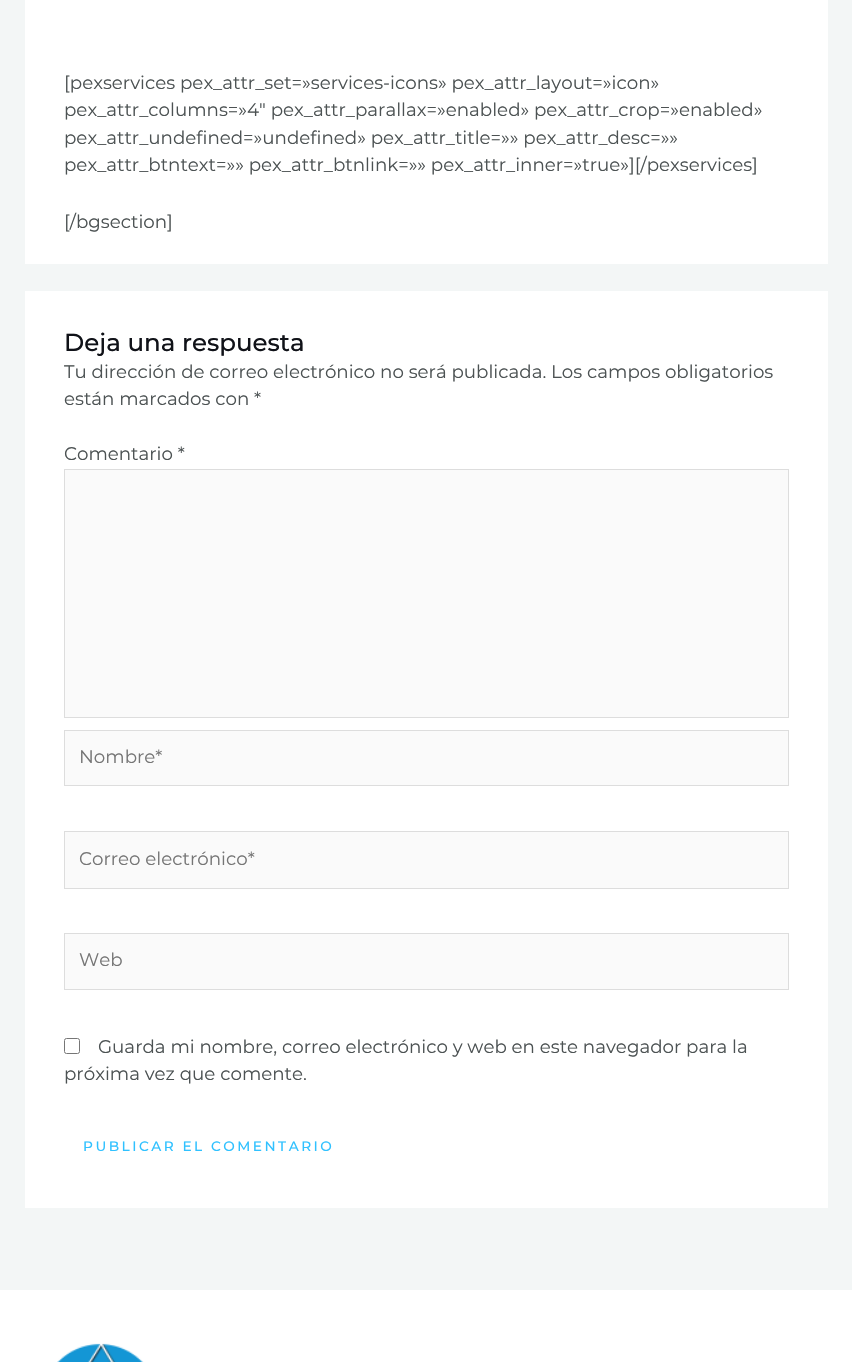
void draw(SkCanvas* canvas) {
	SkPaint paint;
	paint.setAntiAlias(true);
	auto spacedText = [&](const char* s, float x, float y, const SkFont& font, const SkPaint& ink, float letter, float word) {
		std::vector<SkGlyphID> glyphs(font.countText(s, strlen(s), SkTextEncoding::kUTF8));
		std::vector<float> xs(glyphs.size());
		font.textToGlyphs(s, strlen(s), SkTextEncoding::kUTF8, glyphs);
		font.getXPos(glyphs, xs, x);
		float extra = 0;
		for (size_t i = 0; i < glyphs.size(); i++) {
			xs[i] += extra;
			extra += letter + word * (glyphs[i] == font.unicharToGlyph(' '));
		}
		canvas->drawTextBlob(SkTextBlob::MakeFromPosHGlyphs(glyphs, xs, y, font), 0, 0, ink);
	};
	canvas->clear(0xfff3f6f6);
	paint.setColor(0xffffffff);
	canvas->drawRect(SkRect::MakeXYWH(25, 0, 803, 264), paint);
	SkFont f1(fontMgr->matchFamilyStyle("Montserrat", SkFontStyle::Normal()), 18.25);
	f1.setSubpixel(true);
	paint.setColor(0xff4c5253);
	canvas->drawString("[pexservices pex_attr_set=»services-icons» pex_attr_layout=»icon»", 64, 89, f1, paint);
	canvas->drawString("pex_attr_columns=»4″ pex_attr_parallax=»enabled» pex_attr_crop=»enabled»", 64, 116, f1, paint);
	canvas->drawString("pex_attr_undefined=»undefined» pex_attr_title=»» pex_attr_desc=»»", 64, 144, f1, paint);
	canvas->drawString("pex_attr_btntext=»» pex_attr_btnlink=»» pex_attr_inner=»true»][/pexservices]", 64, 171, f1, paint);
	canvas->drawString("[/bgsection]", 64, 228, f1, paint);
	paint.setColor(0xffffffff);
	canvas->drawRect(SkRect::MakeXYWH(25, 291, 803, 917), paint);
	SkFont f2(fontMgr->matchFamilyStyle("Montserrat", SkFontStyle(500, SkFontStyle::kNormal_Width, SkFontStyle::kUpright_Slant)), 24.5);
	f2.setSubpixel(true);
	paint.setColor(0xff101218);
	canvas->drawString("Deja una respuesta", 64, 351, f2, paint);
	paint.setColor(0xff4c5253);
	canvas->drawString("Tu dirección de correo electrónico no será publicada. Los campos obligatorios", 64, 378, f1, paint);
	canvas->drawString("están marcados con *", 64, 405, f1, paint);
	canvas->drawString("Comentario *", 64, 460, f1, paint);
	paint.setColor(0xfffafafa);
	canvas->drawRect(SkRect::MakeXYWH(64.5, 469.5, 724, 248), paint);
	paint.setStroke(true);
	paint.setStrokeWidth(1);
	paint.setColor(0xffdddddd);
	canvas->drawRect(SkRect::MakeXYWH(64.5, 469.5, 724, 248), paint);
	paint.setStroke(false);
	paint.setColor(0xfffafafa);
	canvas->drawRect(SkRect::MakeXYWH(64.5, 730.5, 724, 55), paint);
	paint.setStroke(true);
	paint.setColor(0xffdddddd);
	canvas->drawRect(SkRect::MakeXYWH(64.5, 730.5, 724, 55), paint);
	paint.setStroke(false);
	paint.setColor(0xff757575);
	canvas->drawString("Nombre*", 79, 763, f1, paint);
	paint.setColor(0xfffafafa);
	canvas->drawRect(SkRect::MakeXYWH(64.5, 831.5, 724, 57), paint);
	paint.setStroke(true);
	paint.setColor(0xffdddddd);
	canvas->drawRect(SkRect::MakeXYWH(64.5, 831.5, 724, 57), paint);
	paint.setStroke(false);
	paint.setColor(0xff757575);
	canvas->drawString("Correo electrónico*", 79, 865, f1, paint);
	paint.setColor(0xfffafafa);
	canvas->drawRect(SkRect::MakeXYWH(64.5, 933.5, 724, 56), paint);
	paint.setStroke(true);
	paint.setColor(0xffdddddd);
	canvas->drawRect(SkRect::MakeXYWH(64.5, 933.5, 724, 56), paint);
	paint.setStroke(false);
	paint.setColor(0xff757575);
	canvas->drawString("Web", 79, 966, f1, paint);
	paint.setStroke(true);
	paint.setColor(0xff767676);
	canvas->drawRoundRect(SkRect::MakeXYWH(64.5, 1038.5, 15, 15), 2, 2, paint);
	paint.setStroke(false);
	paint.setColor(0xff4c5253);
	canvas->drawString("Guarda mi nombre, correo electrónico y web en este navegador para la", 98, 1053, f1, paint);
	canvas->drawString("próxima vez que comente.", 64, 1080, f1, paint);
	SkFont f3(fontMgr->matchFamilyStyle("Montserrat", SkFontStyle(500, SkFontStyle::kNormal_Width, SkFontStyle::kUpright_Slant)), 13.7);
	f3.setSubpixel(true);
	paint.setColor(0xff2fc1ff);
	spacedText("PUBLICAR EL COMENTARIO", 83, 1151, f3, paint, 2.5, 0);
	paint.setColor(0xffffffff);
	canvas->drawRect(SkRect::MakeXYWH(0, 1290, 852, 72), paint);
	canvas->drawImageRect(SkImages::DeferredFromEncodedData(SkData::MakeFromFileName("img1.png")), SkRect::MakeXYWH(57, 1343, 87, 19), SkSamplingOptions());
}
